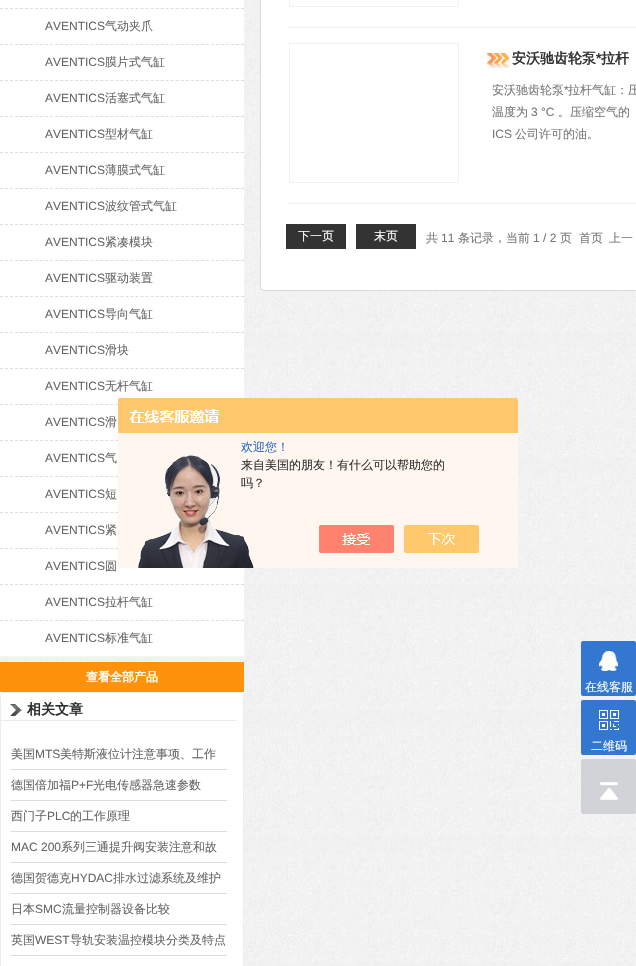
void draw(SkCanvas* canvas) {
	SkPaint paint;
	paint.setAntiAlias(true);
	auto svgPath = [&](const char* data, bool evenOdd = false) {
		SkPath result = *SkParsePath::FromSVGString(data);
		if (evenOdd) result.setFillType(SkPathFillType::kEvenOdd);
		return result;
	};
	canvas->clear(0xffffffff);
	canvas->drawImageRect(SkImages::DeferredFromEncodedData(SkData::MakeFromFileName("img1.png")), SkRect::MakeXYWH(0, 0, 636, 966), SkSamplingOptions());
	paint.setColor(0xfff5f5f5);
	canvas->drawRect(SkRect::MakeXYWH(0, 656, 244, 1), paint);
	paint.setColor(0xffffffff);
	canvas->drawRect(SkRect::MakeXYWH(0, 0, 244, 656), paint);
	paint.setStroke(true);
	paint.setStrokeWidth(1);
	paint.setColor(0xffdddddd);
	paint.setPathEffect(SkDashPathEffect::Make({{3, 2.02f}}, 0));
	canvas->drawPath(svgPath("M0 8.5H244"), paint);
	paint.setPathEffect(nullptr);
	SkFont f1(fontMgr->matchFamilyStyle("Liberation Sans", SkFontStyle::Normal()), 12);
	f1.setSubpixel(true);
	paint.setStroke(false);
	paint.setColor(0xff666666);
	canvas->drawString("AVENTICS", 45, 30, f1, paint);
	SkFont f2(fontMgr->matchFamilyStyle("WenQuanYi Zen Hei", SkFontStyle(500, SkFontStyle::kNormal_Width, SkFontStyle::kUpright_Slant)), 12);
	f2.setSubpixel(true);
	canvas->drawString("气动夹爪", 105, 30, f2, paint);
	paint.setStroke(true);
	paint.setColor(0xffdddddd);
	paint.setPathEffect(SkDashPathEffect::Make({{3, 2.02f}}, 0));
	canvas->drawPath(svgPath("M0 44.5H244"), paint);
	paint.setPathEffect(nullptr);
	paint.setStroke(false);
	paint.setColor(0xff666666);
	canvas->drawString("AVENTICS", 45, 66, f1, paint);
	canvas->drawString("膜片式气缸", 105, 66, f2, paint);
	paint.setStroke(true);
	paint.setColor(0xffdddddd);
	paint.setPathEffect(SkDashPathEffect::Make({{3, 2.02f}}, 0));
	canvas->drawPath(svgPath("M0 80.5H244"), paint);
	paint.setPathEffect(nullptr);
	paint.setStroke(false);
	paint.setColor(0xff666666);
	canvas->drawString("AVENTICS", 45, 102, f1, paint);
	canvas->drawString("活塞式气缸", 105, 102, f2, paint);
	paint.setStroke(true);
	paint.setColor(0xffdddddd);
	paint.setPathEffect(SkDashPathEffect::Make({{3, 2.02f}}, 0));
	canvas->drawPath(svgPath("M0 116.5H244"), paint);
	paint.setPathEffect(nullptr);
	paint.setStroke(false);
	paint.setColor(0xff666666);
	canvas->drawString("AVENTICS", 45, 138, f1, paint);
	canvas->drawString("型材气缸", 105, 138, f2, paint);
	paint.setStroke(true);
	paint.setColor(0xffdddddd);
	paint.setPathEffect(SkDashPathEffect::Make({{3, 2.02f}}, 0));
	canvas->drawPath(svgPath("M0 152.5H244"), paint);
	paint.setPathEffect(nullptr);
	paint.setStroke(false);
	paint.setColor(0xff666666);
	canvas->drawString("AVENTICS", 45, 174, f1, paint);
	canvas->drawString("薄膜式气缸", 105, 174, f2, paint);
	paint.setStroke(true);
	paint.setColor(0xffdddddd);
	paint.setPathEffect(SkDashPathEffect::Make({{3, 2.02f}}, 0));
	canvas->drawPath(svgPath("M0 188.5H244"), paint);
	paint.setPathEffect(nullptr);
	paint.setStroke(false);
	paint.setColor(0xff666666);
	canvas->drawString("AVENTICS", 45, 210, f1, paint);
	canvas->drawString("波纹管式气缸", 105, 210, f2, paint);
	paint.setStroke(true);
	paint.setColor(0xffdddddd);
	paint.setPathEffect(SkDashPathEffect::Make({{3, 2.02f}}, 0));
	canvas->drawPath(svgPath("M0 224.5H244"), paint);
	paint.setPathEffect(nullptr);
	paint.setStroke(false);
	paint.setColor(0xff666666);
	canvas->drawString("AVENTICS", 45, 246, f1, paint);
	canvas->drawString("紧凑模块", 105, 246, f2, paint);
	paint.setStroke(true);
	paint.setColor(0xffdddddd);
	paint.setPathEffect(SkDashPathEffect::Make({{3, 2.02f}}, 0));
	canvas->drawPath(svgPath("M0 260.5H244"), paint);
	paint.setPathEffect(nullptr);
	paint.setStroke(false);
	paint.setColor(0xff666666);
	canvas->drawString("AVENTICS", 45, 282, f1, paint);
	canvas->drawString("驱动装置", 105, 282, f2, paint);
	paint.setStroke(true);
	paint.setColor(0xffdddddd);
	paint.setPathEffect(SkDashPathEffect::Make({{3, 2.02f}}, 0));
	canvas->drawPath(svgPath("M0 296.5H244"), paint);
	paint.setPathEffect(nullptr);
	paint.setStroke(false);
	paint.setColor(0xff666666);
	canvas->drawString("AVENTICS", 45, 318, f1, paint);
	canvas->drawString("导向气缸", 105, 318, f2, paint);
	paint.setStroke(true);
	paint.setColor(0xffdddddd);
	paint.setPathEffect(SkDashPathEffect::Make({{3, 2.02f}}, 0));
	canvas->drawPath(svgPath("M0 332.5H244"), paint);
	paint.setPathEffect(nullptr);
	paint.setStroke(false);
	paint.setColor(0xff666666);
	canvas->drawString("AVENTICS", 45, 354, f1, paint);
	canvas->drawString("滑块", 105, 354, f2, paint);
	paint.setStroke(true);
	paint.setColor(0xffdddddd);
	paint.setPathEffect(SkDashPathEffect::Make({{3, 2.02f}}, 0));
	canvas->drawPath(svgPath("M0 368.5H244"), paint);
	paint.setPathEffect(nullptr);
	paint.setStroke(false);
	paint.setColor(0xff666666);
	canvas->drawString("AVENTICS", 45, 390, f1, paint);
	canvas->drawString("无杆气缸", 105, 390, f2, paint);
	paint.setStroke(true);
	paint.setColor(0xffdddddd);
	paint.setPathEffect(SkDashPathEffect::Make({{3, 2.02f}}, 0));
	canvas->drawPath(svgPath("M0 404.5H244"), paint);
	paint.setPathEffect(nullptr);
	paint.setStroke(false);
	paint.setColor(0xff666666);
	canvas->drawString("AVENTICS", 45, 426, f1, paint);
	canvas->drawString("滑", 105, 426, f2, paint);
	paint.setStroke(true);
	paint.setColor(0xffdddddd);
	paint.setPathEffect(SkDashPathEffect::Make({{3, 2.02f}}, 0));
	canvas->drawPath(svgPath("M0 440.5H244"), paint);
	paint.setPathEffect(nullptr);
	paint.setStroke(false);
	paint.setColor(0xff666666);
	canvas->drawString("AVENTICS", 45, 462, f1, paint);
	canvas->drawString("气", 105, 462, f2, paint);
	paint.setStroke(true);
	paint.setColor(0xffdddddd);
	paint.setPathEffect(SkDashPathEffect::Make({{3, 2.02f}}, 0));
	canvas->drawPath(svgPath("M0 476.5H244"), paint);
	paint.setPathEffect(nullptr);
	paint.setStroke(false);
	paint.setColor(0xff666666);
	canvas->drawString("AVENTICS", 45, 498, f1, paint);
	canvas->drawString("短", 105, 498, f2, paint);
	paint.setStroke(true);
	paint.setColor(0xffdddddd);
	paint.setPathEffect(SkDashPathEffect::Make({{3, 2.02f}}, 0));
	canvas->drawPath(svgPath("M0 512.5H244"), paint);
	paint.setPathEffect(nullptr);
	paint.setStroke(false);
	paint.setColor(0xff666666);
	canvas->drawString("AVENTICS", 45, 534, f1, paint);
	canvas->drawString("紧", 105, 534, f2, paint);
	paint.setStroke(true);
	paint.setColor(0xffdddddd);
	paint.setPathEffect(SkDashPathEffect::Make({{3, 2.02f}}, 0));
	canvas->drawPath(svgPath("M0 548.5H244"), paint);
	paint.setPathEffect(nullptr);
	paint.setStroke(false);
	paint.setColor(0xff666666);
	canvas->drawString("AVENTICS", 45, 570, f1, paint);
	canvas->drawString("圆", 105, 570, f2, paint);
	paint.setStroke(true);
	paint.setColor(0xffdddddd);
	paint.setPathEffect(SkDashPathEffect::Make({{3, 2.02f}}, 0));
	canvas->drawPath(svgPath("M0 584.5H244"), paint);
	paint.setPathEffect(nullptr);
	paint.setStroke(false);
	paint.setColor(0xff666666);
	canvas->drawString("AVENTICS", 45, 606, f1, paint);
	canvas->drawString("拉杆气缸", 105, 606, f2, paint);
	paint.setStroke(true);
	paint.setColor(0xffdddddd);
	paint.setPathEffect(SkDashPathEffect::Make({{3, 2.02f}}, 0));
	canvas->drawPath(svgPath("M0 620.5H244"), paint);
	paint.setPathEffect(nullptr);
	paint.setStroke(false);
	paint.setColor(0xff666666);
	canvas->drawString("AVENTICS", 45, 642, f1, paint);
	canvas->drawString("标准气缸", 105, 642, f2, paint);
	paint.setColor(0xffff920b);
	canvas->drawRect(SkRect::MakeXYWH(0, 662, 244, 30), paint);
	SkFont f3(fontMgr->matchFamilyStyle("WenQuanYi Zen Hei", SkFontStyle::Bold()), 12);
	f3.setSubpixel(true);
	paint.setColor(0xffffffff);
	canvas->drawString("查看全部产品", 86, 681, f3, paint);
	canvas->drawImageRect(SkImages::DeferredFromEncodedData(SkData::MakeFromFileName("img2.png")), SkRect::MakeXYWH(0, 692, 244, 28), SkSamplingOptions());
	canvas->drawImageRect(SkImages::DeferredFromEncodedData(SkData::MakeFromFileName("img3.png")), SkRect::MakeXYWH(10, 704, 12, 12), SkSamplingOptions());
	SkFont f4(fontMgr->matchFamilyStyle("WenQuanYi Zen Hei", SkFontStyle::Bold()), 14);
	f4.setSubpixel(true);
	paint.setColor(0xff2d2d2e);
	canvas->drawString("相关文章", 27, 714, f4, paint);
	paint.setColor(0xffffffff);
	canvas->drawRect(SkRect::MakeXYWH(1, 720, 242, 246), paint);
	paint.setColor(0xffebedec);
	canvas->drawRect(SkRect::MakeXYWH(243, 720, 1, 246), paint);
	canvas->drawRect(SkRect::MakeXYWH(0, 720, 1, 246), paint);
	paint.setColor(0xffe5edf0);
	canvas->drawRect(SkRect::MakeXYWH(1, 720, 236, 1), paint);
	paint.setColor(0xffdddddd);
	canvas->drawRect(SkRect::MakeXYWH(11, 769, 216, 1), paint);
	paint.setColor(0xff666666);
	canvas->drawString("美国", 11, 758, f2, paint);
	canvas->drawString("MTS", 35, 758, f1, paint);
	canvas->drawString("美特斯液位计注意事项、工作", 60, 758, f2, paint);
	paint.setColor(0xffdddddd);
	canvas->drawRect(SkRect::MakeXYWH(11, 800, 216, 1), paint);
	paint.setColor(0xff666666);
	canvas->drawString("德国倍加福", 11, 789, f2, paint);
	canvas->drawString("P+F", 71, 789, f1, paint);
	canvas->drawString("光电传感器急速参数", 93, 789, f2, paint);
	paint.setColor(0xffdddddd);
	canvas->drawRect(SkRect::MakeXYWH(11, 831, 216, 1), paint);
	paint.setColor(0xff666666);
	canvas->drawString("西门子", 11, 820, f2, paint);
	canvas->drawString("PLC", 47, 820, f1, paint);
	canvas->drawString("的工作原理", 70, 820, f2, paint);
	paint.setColor(0xffdddddd);
	canvas->drawRect(SkRect::MakeXYWH(11, 862, 216, 1), paint);
	paint.setColor(0xff666666);
	canvas->drawString("MAC 200", 11, 851, f1, paint);
	canvas->drawString("系列三通提升阀安装注意和故", 61, 851, f2, paint);
	paint.setColor(0xffdddddd);
	canvas->drawRect(SkRect::MakeXYWH(11, 893, 216, 1), paint);
	paint.setColor(0xff666666);
	canvas->drawString("德国贺德克", 11, 882, f2, paint);
	canvas->drawString("HYDAC", 71, 882, f1, paint);
	canvas->drawString("排水过滤系统及维护", 113, 882, f2, paint);
	paint.setColor(0xffdddddd);
	canvas->drawRect(SkRect::MakeXYWH(11, 924, 216, 1), paint);
	paint.setColor(0xff666666);
	canvas->drawString("日本", 11, 913, f2, paint);
	canvas->drawString("SMC", 35, 913, f1, paint);
	canvas->drawString("流量控制器设备比较", 62, 913, f2, paint);
	paint.setColor(0xffdddddd);
	canvas->drawRect(SkRect::MakeXYWH(11, 955, 216, 1), paint);
	paint.setColor(0xff666666);
	canvas->drawString("英国", 11, 944, f2, paint);
	canvas->drawString("WEST", 35, 944, f1, paint);
	canvas->drawString("导轨安装温控模块分类及特点", 70, 944, f2, paint);
	paint.setColor(0xffffffff);
	canvas->drawRoundRect(SkRect::MakeXYWH(260.5, -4.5, 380, 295), 3.5, 3.5, paint);
	paint.setStroke(true);
	paint.setColor(0xffd9d9d9);
	canvas->drawRoundRect(SkRect::MakeXYWH(260.5, -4.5, 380, 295), 3.5, 3.5, paint);
	paint.setStroke(false);
	paint.setColor(0xfff1f1f1);
	canvas->drawRect(SkRect::MakeXYWH(289, 27, 347, 1), paint);
	paint.setStroke(true);
	canvas->drawRect(SkRect::MakeXYWH(289.5, -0.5, 169, 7), paint);
	paint.setStroke(false);
	canvas->drawRect(SkRect::MakeXYWH(289, 203, 347, 1), paint);
	paint.setStroke(true);
	canvas->drawRect(SkRect::MakeXYWH(289.5, 43.5, 169, 139), paint);
	canvas->drawImageRect(SkImages::DeferredFromEncodedData(SkData::MakeFromFileName("img4.png")), SkRect::MakeXYWH(487, 53, 23, 15), SkSamplingOptions());
	paint.setStroke(false);
	paint.setColor(0xff333333);
	canvas->drawString("安沃驰齿轮泵", 512, 63, f4, paint);
	SkFont f5(fontMgr->matchFamilyStyle("Liberation Sans", SkFontStyle::Bold()), 14);
	f5.setSubpixel(true);
	canvas->drawString("*", 596, 63, f5, paint);
	canvas->drawString("拉杆", 601, 63, f4, paint);
	paint.setColor(0xff777777);
	canvas->drawString("安沃驰齿轮泵", 492, 94, f2, paint);
	canvas->drawString("*", 564, 94, f1, paint);
	canvas->drawString("拉杆气缸：压", 568, 94, f2, paint);
	canvas->drawString("温度为", 492, 116, f2, paint);
	canvas->drawString("3 °C", 531, 116, f1, paint);
	canvas->drawString("。压缩空气的", 558, 116, f2, paint);
	canvas->drawString("ICS", 492, 138, f1, paint);
	canvas->drawString("公司许可的油。", 515, 138, f2, paint);
	paint.setColor(0xff333333);
	canvas->drawRect(SkRect::MakeXYWH(286, 224, 60, 25), paint);
	paint.setColor(0xffffffff);
	canvas->drawString("下一页", 298, 240, f2, paint);
	paint.setColor(0xff333333);
	canvas->drawRect(SkRect::MakeXYWH(356, 224, 60, 25), paint);
	paint.setColor(0xffffffff);
	canvas->drawString("末页", 374, 240, f2, paint);
	paint.setColor(0xff777777);
	canvas->drawString("共", 426, 242, f2, paint);
	canvas->drawString("11", 441, 242, f1, paint);
	canvas->drawString("条记录，当前", 458, 242, f2, paint);
	canvas->drawString("1 / 2", 533, 242, f1, paint);
	canvas->drawString("页", 560, 242, f2, paint);
	canvas->drawString("首页", 579, 242, f2, paint);
	canvas->drawString("上一", 609, 242, f2, paint);
	canvas->drawImageRect(SkImages::DeferredFromEncodedData(SkData::MakeFromFileName("img5.png")), SkRect::MakeXYWH(118, 398, 400, 170), SkSamplingOptions());
	paint.setColor(0xff2e6ec6);
	canvas->drawString("欢迎您！", 241, 451, f2, paint);
	paint.setColor(0xff333333);
	canvas->drawString("来自美国的朋友！有什么可以帮助您的", 241, 469, f2, paint);
	canvas->drawString("吗？", 241, 487, f2, paint);
	paint.setColor(0xff3377d0);
	canvas->drawRoundRect(SkRect::MakeXYWH(581, 641, 55, 55), 2, 2, paint);
	canvas->drawImageRect(SkImages::DeferredFromEncodedData(SkData::MakeFromFileName("img6.png")), SkRect::MakeXYWH(599, 651, 19, 20), SkSamplingOptions());
	paint.setColor(0xffffffff);
	canvas->drawString("在线客服", 585, 691, f2, paint);
	paint.setColor(0xff3377d0);
	canvas->drawRoundRect(SkRect::MakeXYWH(581, 700, 55, 55), 2, 2, paint);
	canvas->drawImageRect(SkImages::DeferredFromEncodedData(SkData::MakeFromFileName("img7.png")), SkRect::MakeXYWH(599, 710, 20, 20), SkSamplingOptions());
	paint.setColor(0xffffffff);
	canvas->drawString("二维码", 591, 750, f2, paint);
	paint.setColor(0xffd2d3d6);
	canvas->drawRoundRect(SkRect::MakeXYWH(581, 759, 55, 55), 2, 2, paint);
	canvas->drawImageRect(SkImages::DeferredFromEncodedData(SkData::MakeFromFileName("img8.png")), SkRect::MakeXYWH(600, 782, 18, 18), SkSamplingOptions());
}
